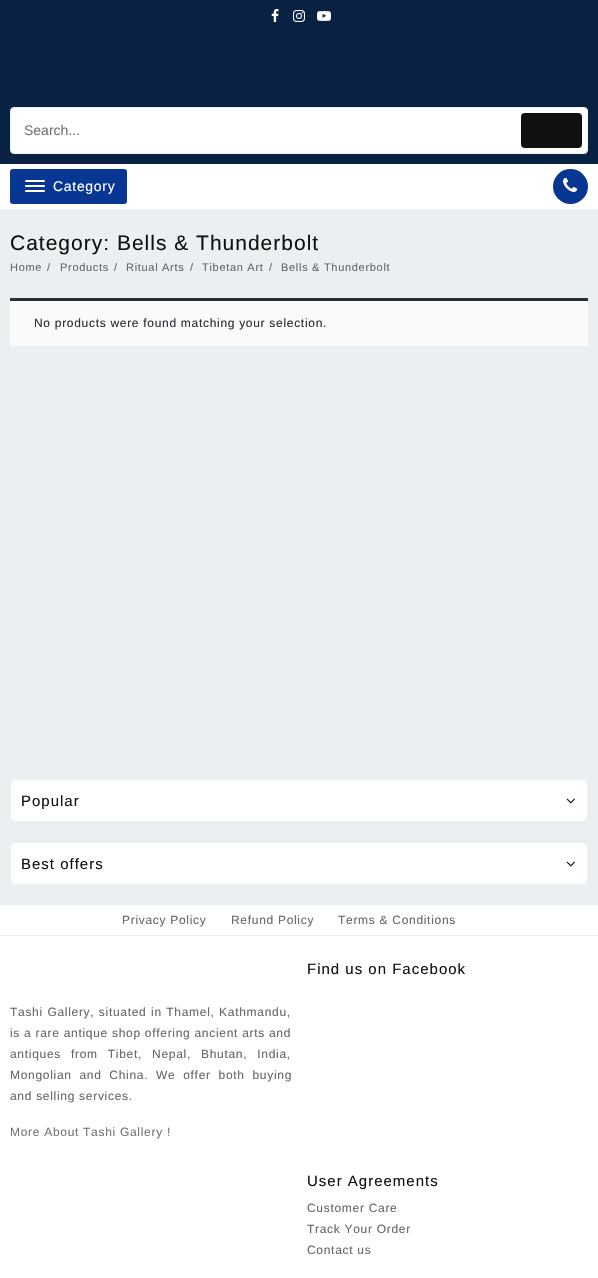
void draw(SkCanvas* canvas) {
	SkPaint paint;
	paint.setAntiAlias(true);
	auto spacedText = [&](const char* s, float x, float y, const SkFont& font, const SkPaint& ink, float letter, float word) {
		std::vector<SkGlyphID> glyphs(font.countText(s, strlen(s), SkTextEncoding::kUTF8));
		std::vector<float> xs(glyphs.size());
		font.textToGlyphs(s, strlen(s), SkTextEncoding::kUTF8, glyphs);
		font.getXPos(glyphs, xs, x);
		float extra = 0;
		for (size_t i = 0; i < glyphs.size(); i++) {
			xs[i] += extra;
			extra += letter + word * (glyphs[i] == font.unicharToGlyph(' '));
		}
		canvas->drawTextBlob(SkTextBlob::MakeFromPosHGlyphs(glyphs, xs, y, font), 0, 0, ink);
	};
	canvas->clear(0xffeaeff2);
	paint.setColor(0xff092143);
	canvas->drawRect(SkRect::MakeXYWH(0, 0, 598, 164), paint);
	canvas->drawImageRect(SkImages::DeferredFromEncodedData(SkData::MakeFromFileName("img1.png")), SkRect::MakeXYWH(271, 9, 8, 13), SkSamplingOptions());
	canvas->drawImageRect(SkImages::DeferredFromEncodedData(SkData::MakeFromFileName("img2.png")), SkRect::MakeXYWH(293, 10, 12, 12), SkSamplingOptions());
	canvas->drawImageRect(SkImages::DeferredFromEncodedData(SkData::MakeFromFileName("img3.png")), SkRect::MakeXYWH(317, 11, 14, 10), SkSamplingOptions());
	paint.setColor(0xffffffff);
	canvas->drawRoundRect(SkRect::MakeXYWH(10.5, 107.5, 577, 46), 3.5, 3.5, paint);
	paint.setStroke(true);
	paint.setStrokeWidth(1);
	paint.setColor(0xffe7f5ff);
	canvas->drawRoundRect(SkRect::MakeXYWH(10.5, 107.5, 577, 46), 3.5, 3.5, paint);
	SkFont f1(fontMgr->matchFamilyStyle("Liberation Sans", SkFontStyle::Normal()), 14);
	f1.setSubpixel(true);
	paint.setStroke(false);
	paint.setColor(0xff757575);
	canvas->drawString("Search...", 24, 135, f1, paint);
	paint.setColor(0xff111111);
	canvas->drawRoundRect(SkRect::MakeXYWH(521, 113, 61, 35), 4, 4, paint);
	paint.setColor(0xffffffff);
	canvas->drawRect(SkRect::MakeXYWH(0, 164, 598, 45), paint);
	paint.setColor(0xff073693);
	canvas->drawRoundRect(SkRect::MakeXYWH(10, 169, 117, 35), 3, 3, paint);
	paint.setColor(0xffffffff);
	canvas->drawRoundRect(SkRect::MakeXYWH(25, 180, 20, 2), 1, 1, paint);
	canvas->drawRoundRect(SkRect::MakeXYWH(25, 185, 20, 2), 1, 1, paint);
	canvas->drawRoundRect(SkRect::MakeXYWH(25, 190, 20, 2), 1, 1, paint);
	spacedText("Category", 53, 191, f1, paint, 0.7, 0);
	paint.setColor(0xff073693);
	canvas->drawCircle(570.5, 186.5, 17.5, paint);
	canvas->drawImageRect(SkImages::DeferredFromEncodedData(SkData::MakeFromFileName("img4.png")), SkRect::MakeXYWH(563, 177, 15, 15), SkSamplingOptions());
	SkFont f2(fontMgr->matchFamilyStyle("Liberation Sans", SkFontStyle::Normal()), 21);
	f2.setSubpixel(true);
	paint.setColor(0xff111111);
	spacedText("Category: Bells & Thunderbolt", 10, 250, f2, paint, 1, 0);
	SkFont f3(fontMgr->matchFamilyStyle("Liberation Sans", SkFontStyle::Normal()), 11);
	f3.setSubpixel(true);
	paint.setColor(0xff666666);
	spacedText("Home", 10, 271, f3, paint, 0.7, 0);
	spacedText("/", 47, 271, f3, paint, 0.7, 0);
	spacedText("Products", 60, 271, f3, paint, 0.7, 0);
	spacedText("/", 114, 271, f3, paint, 0.7, 0);
	spacedText("Ritual Arts", 126, 271, f3, paint, 0.7, 0);
	spacedText("/", 190, 271, f3, paint, 0.7, 0);
	spacedText("Tibetan Art", 202, 271, f3, paint, 0.7, 0);
	spacedText("/", 269, 271, f3, paint, 0.7, 0);
	spacedText("Bells & Thunderbolt", 281, 271, f3, paint, 0.7, 0);
	paint.setColor(0xfffafafa);
	canvas->drawRect(SkRect::MakeXYWH(10, 301, 578, 45), paint);
	paint.setColor(0xff292e32);
	canvas->drawRect(SkRect::MakeXYWH(10, 298, 578, 3), paint);
	SkFont f4(fontMgr->matchFamilyStyle("Liberation Sans", SkFontStyle::Normal()), 12);
	f4.setSubpixel(true);
	spacedText("No products were found matching your selection.", 34, 327, f4, paint, 0.7, 0);
	paint.setColor(0xffffffff);
	canvas->drawRoundRect(SkRect::MakeXYWH(10.5, 779.5, 577, 42), 5.5, 5.5, paint);
	paint.setStroke(true);
	paint.setColor(0xfff1f1f1);
	canvas->drawRoundRect(SkRect::MakeXYWH(10.5, 779.5, 577, 42), 5.5, 5.5, paint);
	SkFont f5(fontMgr->matchFamilyStyle("Liberation Sans", SkFontStyle::Normal()), 15);
	f5.setSubpixel(true);
	paint.setStroke(false);
	paint.setColor(0xff111111);
	spacedText("Popular", 21, 806, f5, paint, 1, 0);
	canvas->drawImageRect(SkImages::DeferredFromEncodedData(SkData::MakeFromFileName("img5.png")), SkRect::MakeXYWH(566, 798, 9, 6), SkSamplingOptions());
	paint.setColor(0xffffffff);
	canvas->drawRoundRect(SkRect::MakeXYWH(10.5, 842.5, 577, 42), 5.5, 5.5, paint);
	paint.setStroke(true);
	paint.setColor(0xfff1f1f1);
	canvas->drawRoundRect(SkRect::MakeXYWH(10.5, 842.5, 577, 42), 5.5, 5.5, paint);
	paint.setStroke(false);
	paint.setColor(0xff111111);
	spacedText("Best offers", 21, 869, f5, paint, 1, 0);
	canvas->drawImageRect(SkImages::DeferredFromEncodedData(SkData::MakeFromFileName("img5.png")), SkRect::MakeXYWH(566, 861, 9, 6), SkSamplingOptions());
	paint.setColor(0xffededed);
	canvas->drawRect(SkRect::MakeXYWH(0, 935, 598, 1), paint);
	paint.setColor(0xffffffff);
	canvas->drawRect(SkRect::MakeXYWH(0, 905, 598, 30), paint);
	paint.setColor(0xff666666);
	spacedText("Privacy Policy", 122, 924, f4, paint, 0.7, 0);
	spacedText("Refund Policy", 231, 924, f4, paint, 0.7, 0);
	spacedText("Terms & Conditions", 338, 924, f4, paint, 0.7, 0);
	paint.setColor(0xffffffff);
	canvas->drawRect(SkRect::MakeXYWH(0, 936, 598, 342), paint);
	paint.setColor(0xff666666);
	spacedText("Tashi Gallery, situated in Thamel, Kathmandu,", 10, 1016, f4, paint, 0.7, 0.5);
	spacedText("is a rare antique shop offering ancient arts and", 10, 1037, f4, paint, 0.7, 0);
	spacedText("antiques from Tibet, Nepal, Bhutan, India,", 10, 1058, f4, paint, 0.7, 6);
	spacedText("Mongolian and China. We offer both buying", 10, 1079, f4, paint, 0.7, 3.75);
	spacedText("and selling services.", 10, 1100, f4, paint, 0.7, 0);
	paint.setColor(0xff757575);
	spacedText("More About Tashi Gallery !", 10, 1136, f4, paint, 0.7, 0);
	paint.setColor(0xff111111);
	spacedText("Find us on Facebook", 307, 974, f5, paint, 1, 0);
	spacedText("User Agreements", 307, 1186, f5, paint, 1, 0);
	paint.setColor(0xff666666);
	spacedText("Customer Care", 307, 1212, f4, paint, 0.7, 0);
	spacedText("Track Your Order", 307, 1233, f4, paint, 0.7, 0);
	spacedText("Contact us", 307, 1254, f4, paint, 0.7, 0);
}
